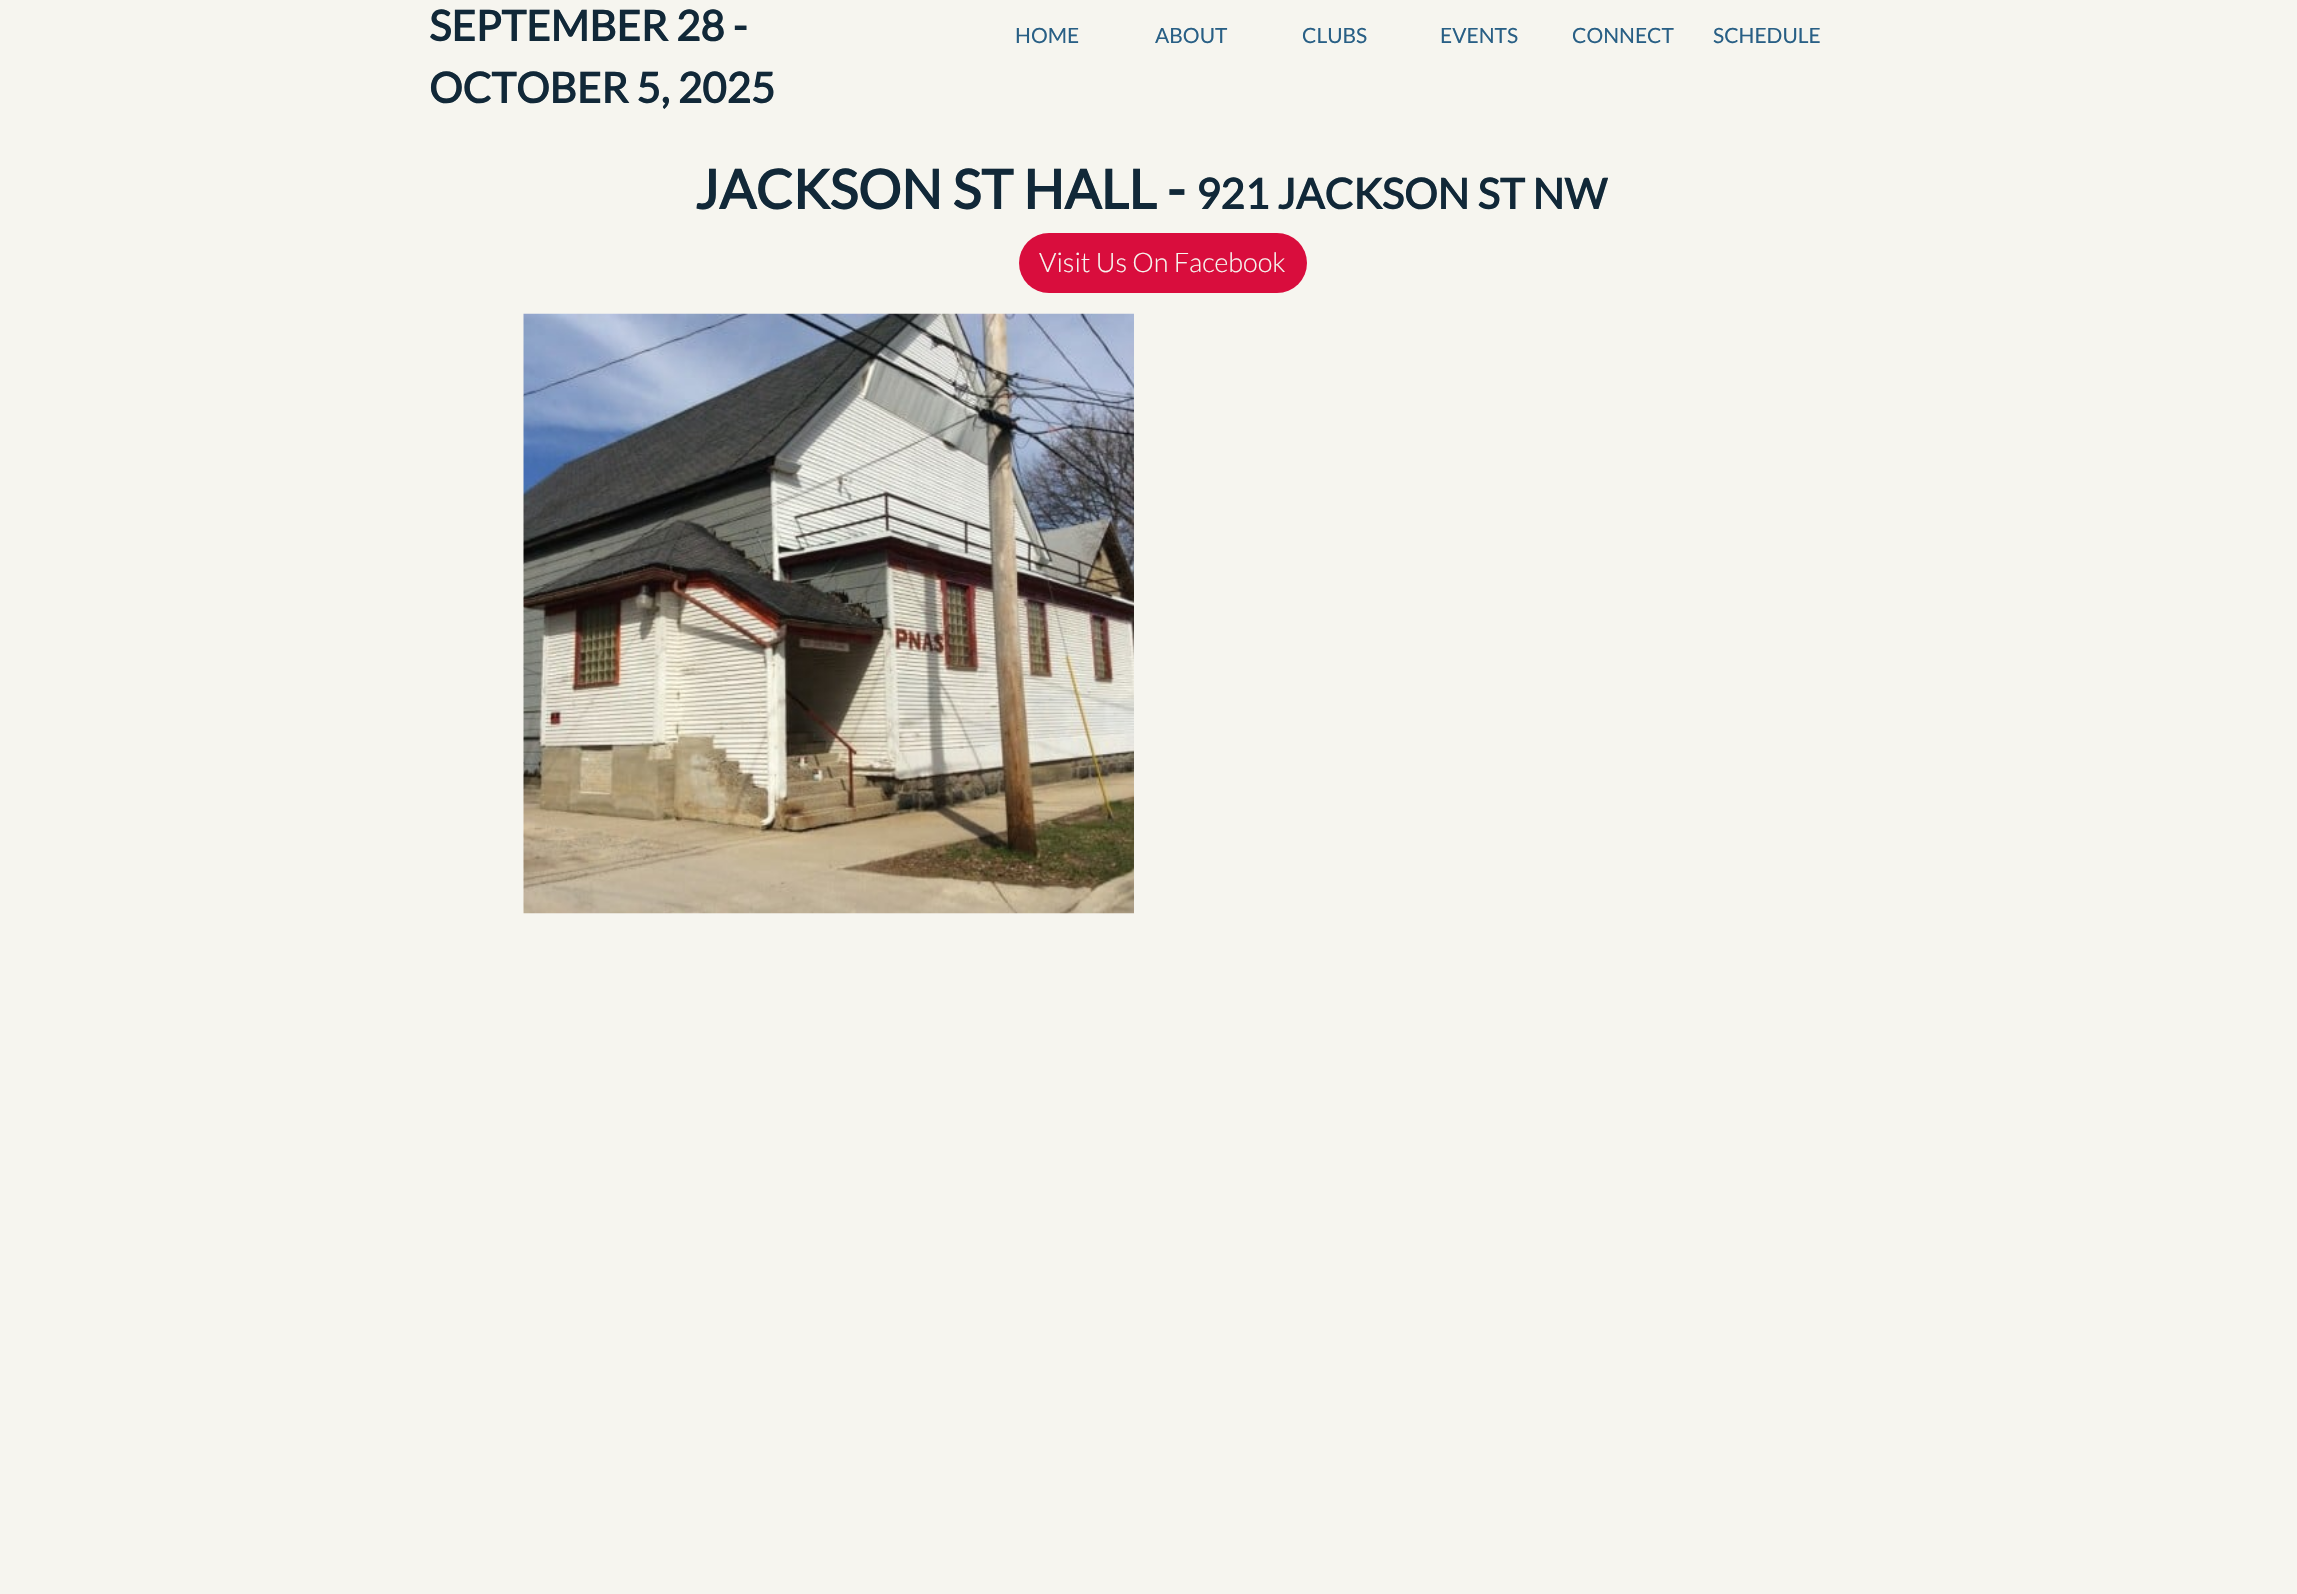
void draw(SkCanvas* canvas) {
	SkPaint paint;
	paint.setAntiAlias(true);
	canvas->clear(0xfff6f5ef);
	SkFont f1(fontMgr->matchFamilyStyle("Lato", SkFontStyle::Bold()), 42);
	f1.setSubpixel(true);
	paint.setColor(0xff112838);
	canvas->drawString("SEPTEMBER 28 -", 429, 41, f1, paint);
	canvas->drawString("OCTOBER 5, 2025", 429, 103, f1, paint);
	SkFont f2(fontMgr->matchFamilyStyle("Lato", SkFontStyle::Normal()), 21);
	f2.setSubpixel(true);
	paint.setColor(0xff285f85);
	canvas->drawString("HOME", 1015, 43, f2, paint);
	canvas->drawString("ABOUT", 1155, 43, f2, paint);
	canvas->drawString("CLUBS", 1302, 43, f2, paint);
	canvas->drawString("EVENTS", 1440, 43, f2, paint);
	canvas->drawString("CONNECT", 1572, 43, f2, paint);
	canvas->drawString("SCHEDULE", 1713, 43, f2, paint);
	SkFont f3(fontMgr->matchFamilyStyle("Lato", SkFontStyle::Bold()), 54);
	f3.setSubpixel(true);
	paint.setColor(0xff112838);
	canvas->drawString("JACKSON ST HALL -", 695, 209, f3, paint);
	canvas->drawString("921 JACKSON ST NW", 1196, 209, f1, paint);
	paint.setColor(0xffd90d3d);
	canvas->drawRoundRect(SkRect::MakeXYWH(1019, 233, 288, 60), 30, 30, paint);
	SkFont f4(fontMgr->matchFamilyStyle("Lato", SkFontStyle(300, SkFontStyle::kNormal_Width, SkFontStyle::kUpright_Slant)), 27);
	f4.setSubpixel(true);
	paint.setColor(0xfff6f5ef);
	canvas->drawString("Visit Us On Facebook", 1039, 272, f4, paint);
	canvas->drawImageRect(SkImages::DeferredFromEncodedData(SkData::MakeFromFileName("img1.png")), SkRect::MakeXYWH(523, 313, 611, 601), SkSamplingOptions());
}
